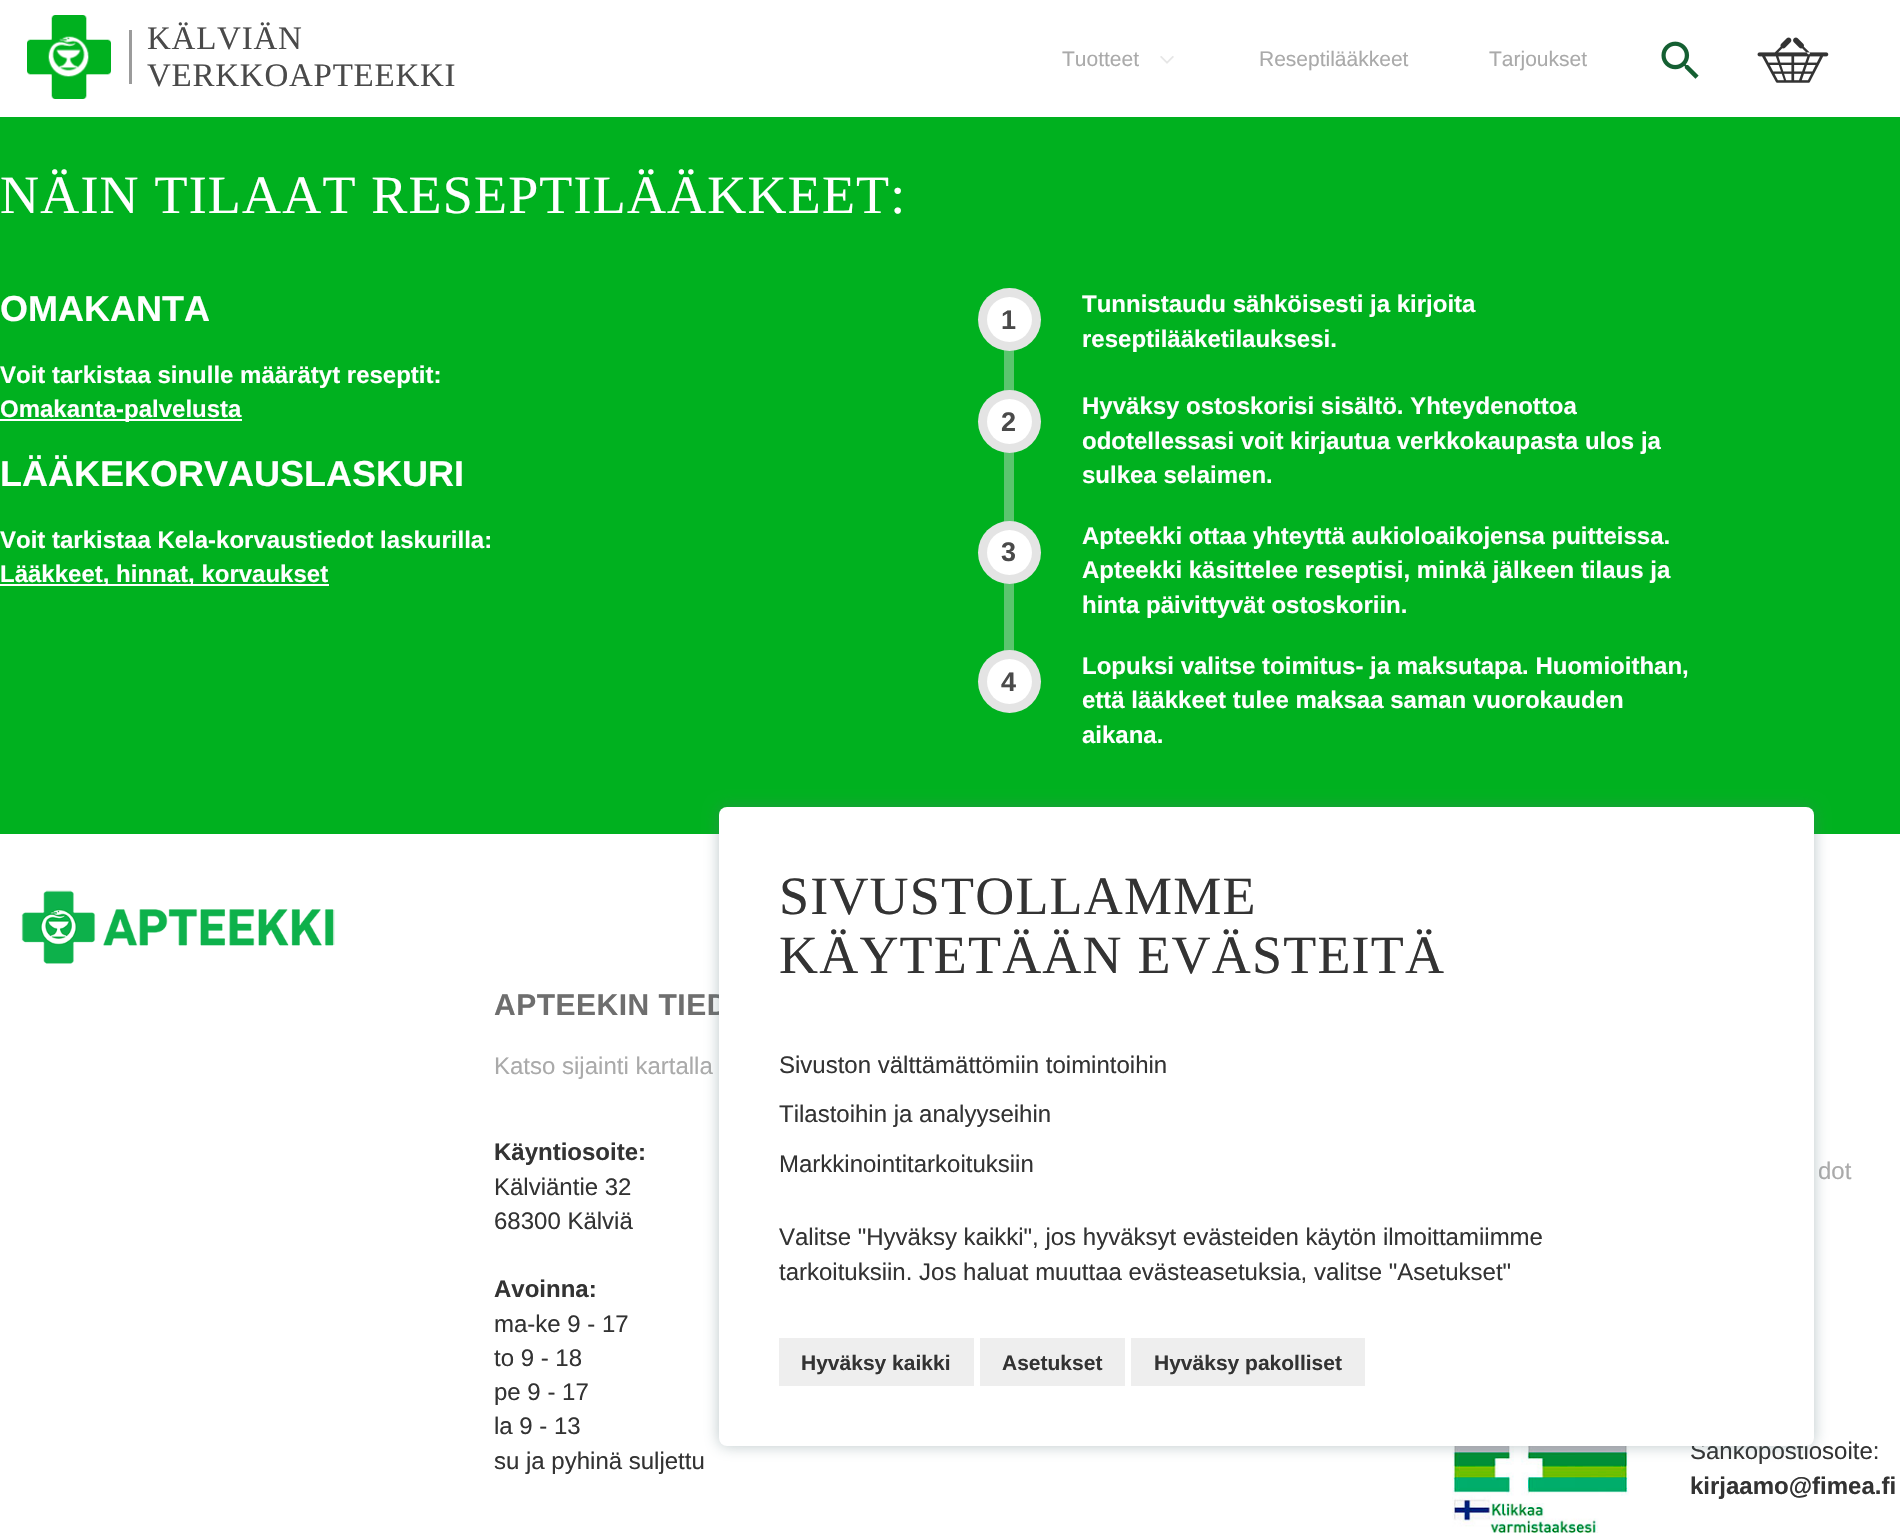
void draw(SkCanvas* canvas) {
	SkPaint paint;
	paint.setAntiAlias(true);
	auto spacedText = [&](const char* s, float x, float y, const SkFont& font, const SkPaint& ink, float letter, float word) {
		std::vector<SkGlyphID> glyphs(font.countText(s, strlen(s), SkTextEncoding::kUTF8));
		std::vector<float> xs(glyphs.size());
		font.textToGlyphs(s, strlen(s), SkTextEncoding::kUTF8, glyphs);
		font.getXPos(glyphs, xs, x);
		float extra = 0;
		for (size_t i = 0; i < glyphs.size(); i++) {
			xs[i] += extra;
			extra += letter + word * (glyphs[i] == font.unicharToGlyph(' '));
		}
		canvas->drawTextBlob(SkTextBlob::MakeFromPosHGlyphs(glyphs, xs, y, font), 0, 0, ink);
	};
	canvas->clear(0xffffffff);
	canvas->drawImageRect(SkImages::DeferredFromEncodedData(SkData::MakeFromFileName("img1.png")), SkRect::MakeXYWH(27, 15, 84, 84), SkSamplingOptions());
	paint.setColor(0xff9b9b9b);
	canvas->drawRect(SkRect::MakeXYWH(129, 30, 3, 54), paint);
	SkFont f1(fontMgr->matchFamilyStyle("Liberation Serif", SkFontStyle::Normal()), 33);
	f1.setSubpixel(true);
	paint.setColor(0xff4a4a4a);
	spacedText("KÄLVIÄN", 147, 49, f1, paint, 0.75, 0);
	spacedText("VERKKOAPTEEKKI", 147, 86, f1, paint, 0.75, 0);
	SkFont f2(fontMgr->matchFamilyStyle("Liberation Sans", SkFontStyle::Normal()), 21);
	f2.setSubpixel(true);
	paint.setColor(0xffaaaaaa);
	canvas->drawString("Tuotteet", 1062, 66, f2, paint);
	canvas->drawImageRect(SkImages::DeferredFromEncodedData(SkData::MakeFromFileName("img2.png")), SkRect::MakeXYWH(1160, 56, 14, 8), SkSamplingOptions());
	canvas->drawString("Reseptilääkkeet", 1259, 66, f2, paint);
	canvas->drawString("Tarjoukset", 1489, 66, f2, paint);
	canvas->drawImageRect(SkImages::DeferredFromEncodedData(SkData::MakeFromFileName("img3.png")), SkRect::MakeXYWH(1661, 41, 38, 38), SkSamplingOptions());
	canvas->drawImageRect(SkImages::DeferredFromEncodedData(SkData::MakeFromFileName("img4.png")), SkRect::MakeXYWH(1757, 37, 72, 46), SkSamplingOptions());
	paint.setColor(0xff00b11f);
	canvas->drawRect(SkRect::MakeXYWH(0, 117, 1900, 717), paint);
	SkFont f3(fontMgr->matchFamilyStyle("Liberation Serif", SkFontStyle::Normal()), 54);
	f3.setSubpixel(true);
	paint.setColor(0xffffffff);
	spacedText("NÄIN TILAAT RESEPTILÄÄKKEET:", 0, 213, f3, paint, 1.2, 0);
	SkFont f4(fontMgr->matchFamilyStyle("Liberation Sans", SkFontStyle::Bold()), 36);
	f4.setSubpixel(true);
	canvas->drawString("OMAKANTA", 0, 321, f4, paint);
	SkFont f5(fontMgr->matchFamilyStyle("Liberation Sans", SkFontStyle::Bold()), 24);
	f5.setSubpixel(true);
	canvas->drawString("Voit tarkistaa sinulle määrätyt reseptit:", 0, 383, f5, paint);
	canvas->drawRect(SkRect::MakeXYWH(0, 419, 242, 2), paint);
	canvas->drawString("Omakanta-palvelusta", 0, 417, f5, paint);
	canvas->drawString("LÄÄKEKORVAUSLASKURI", 0, 486, f4, paint);
	canvas->drawString("Voit tarkistaa Kela-korvaustiedot laskurilla:", 0, 548, f5, paint);
	canvas->drawRect(SkRect::MakeXYWH(0, 584, 329, 2), paint);
	canvas->drawString("Lääkkeet, hinnat, korvaukset", 0, 582, f5, paint);
	paint.setColor(0xff5bc56e);
	canvas->drawRect(SkRect::MakeXYWH(1004, 350, 10, 41), paint);
	paint.setColor(0xffe4e4e4);
	canvas->drawCircle(1009.5, 319.5, 31.5, paint);
	paint.setColor(0xffffffff);
	canvas->drawString("Tunnistaudu sähköisesti ja kirjoita", 1082, 312, f5, paint);
	canvas->drawCircle(1009.5, 319.5, 22.5, paint);
	SkFont f6(fontMgr->matchFamilyStyle("Liberation Sans", SkFontStyle::Bold()), 27);
	f6.setSubpixel(true);
	paint.setColor(0xff4a4a4a);
	canvas->drawString("1", 1001, 329, f6, paint);
	paint.setColor(0xffffffff);
	canvas->drawString("reseptilääketilauksesi.", 1082, 347, f5, paint);
	paint.setColor(0xff5bc56e);
	canvas->drawRect(SkRect::MakeXYWH(1004, 452, 10, 70), paint);
	paint.setColor(0xffe4e4e4);
	canvas->drawCircle(1009.5, 421.5, 31.5, paint);
	paint.setColor(0xffffffff);
	canvas->drawString("Hyväksy ostoskorisi sisältö. Yhteydenottoa", 1082, 414, f5, paint);
	canvas->drawCircle(1009.5, 421.5, 22.5, paint);
	paint.setColor(0xff4a4a4a);
	canvas->drawString("2", 1001, 431, f6, paint);
	paint.setColor(0xffffffff);
	canvas->drawString("odotellessasi voit kirjautua verkkokaupasta ulos ja", 1082, 449, f5, paint);
	canvas->drawString("sulkea selaimen.", 1082, 483, f5, paint);
	paint.setColor(0xff5bc56e);
	canvas->drawRect(SkRect::MakeXYWH(1004, 583, 10, 68), paint);
	paint.setColor(0xffe4e4e4);
	canvas->drawCircle(1009.5, 552.5, 31.5, paint);
	paint.setColor(0xffffffff);
	canvas->drawString("Apteekki ottaa yhteyttä aukioloaikojensa puitteissa.", 1082, 544, f5, paint);
	canvas->drawCircle(1009.5, 552.5, 22.5, paint);
	paint.setColor(0xff4a4a4a);
	canvas->drawString("3", 1001, 561, f6, paint);
	paint.setColor(0xffffffff);
	canvas->drawString("Apteekki käsittelee reseptisi, minkä jälkeen tilaus ja", 1082, 578, f5, paint);
	canvas->drawString("hinta päivittyvät ostoskoriin.", 1082, 613, f5, paint);
	paint.setColor(0xffe4e4e4);
	canvas->drawCircle(1009.5, 681.5, 31.5, paint);
	paint.setColor(0xffffffff);
	canvas->drawString("Lopuksi valitse toimitus- ja maksutapa. Huomioithan,", 1082, 674, f5, paint);
	canvas->drawCircle(1009.5, 681.5, 22.5, paint);
	paint.setColor(0xff4a4a4a);
	canvas->drawString("4", 1001, 691, f6, paint);
	paint.setColor(0xffffffff);
	canvas->drawString("että lääkkeet tulee maksaa saman vuorokauden", 1082, 708, f5, paint);
	canvas->drawString("aikana.", 1082, 743, f5, paint);
	canvas->drawImageRect(SkImages::DeferredFromEncodedData(SkData::MakeFromFileName("img5.png")), SkRect::MakeXYWH(21, 890, 314, 74), SkSamplingOptions());
	SkFont f7(fontMgr->matchFamilyStyle("Liberation Sans", SkFontStyle::Bold()), 30);
	f7.setSubpixel(true);
	paint.setColor(0xff6e6e6e);
	spacedText("APTEEKIN TIED", 494, 1015, f7, paint, 0.5, 0);
	SkFont f8(fontMgr->matchFamilyStyle("Liberation Sans", SkFontStyle::Normal()), 24);
	f8.setSubpixel(true);
	paint.setColor(0xffaaaaaa);
	canvas->drawString("Katso sijainti kartalla", 494, 1074, f8, paint);
	paint.setColor(0xff333333);
	canvas->drawString("Käyntiosoite:", 494, 1160, f5, paint);
	canvas->drawString("Kälviäntie 32", 494, 1195, f8, paint);
	canvas->drawString("68300 Kälviä", 494, 1229, f8, paint);
	canvas->drawString("Avoinna:", 494, 1297, f5, paint);
	canvas->drawString("ma-ke 9 - 17", 494, 1332, f8, paint);
	canvas->drawString("to 9 - 18", 494, 1366, f8, paint);
	canvas->drawString("pe 9 - 17", 494, 1400, f8, paint);
	canvas->drawString("la 9 - 13", 494, 1434, f8, paint);
	canvas->drawString("su ja pyhinä suljettu", 494, 1469, f8, paint);
	paint.setColor(0xffaaaaaa);
	canvas->drawString("dot", 1818, 1179, f8, paint);
	canvas->drawImageRect(SkImages::DeferredFromEncodedData(SkData::MakeFromFileName("img6.png")), SkRect::MakeXYWH(1452, 1446, 177, 87), SkSamplingOptions());
	paint.setColor(0xff333333);
	canvas->drawString("Sähköpostiosoite:", 1690, 1459, f8, paint);
	canvas->drawString("kirjaamo@fimea.fi", 1690, 1494, f5, paint);
	paint.setColor(0x66547478);
	paint.setMaskFilter(SkMaskFilter::MakeBlur(kNormal_SkBlurStyle, 7.5));
	canvas->drawRoundRect(SkRect::MakeXYWH(719, 807, 1095, 639), 8, 8, paint);
	paint.setMaskFilter(nullptr);
	paint.setColor(0xffffffff);
	canvas->drawRoundRect(SkRect::MakeXYWH(719, 807, 1095, 639), 8, 8, paint);
	paint.setColor(0xff333333);
	spacedText("SIVUSTOLLAMME", 779, 914, f3, paint, 1.2, 0);
	spacedText("KÄYTETÄÄN EVÄSTEITÄ", 779, 973, f3, paint, 1.2, 0);
	canvas->drawString("Sivuston välttämättömiin toimintoihin", 779, 1073, f8, paint);
	canvas->drawString("Tilastoihin ja analyyseihin", 779, 1122, f8, paint);
	canvas->drawString("Markkinointitarkoituksiin", 779, 1172, f8, paint);
	canvas->drawString("Valitse \"Hyväksy kaikki\", jos hyväksyt evästeiden käytön ilmoittamiimme", 779, 1245, f8, paint);
	canvas->drawString("tarkoituksiin. Jos haluat muuttaa evästeasetuksia, valitse \"Asetukset\"", 779, 1280, f8, paint);
	paint.setColor(0xffeeeeee);
	canvas->drawRect(SkRect::MakeXYWH(779, 1338, 195, 48), paint);
	SkFont f9(fontMgr->matchFamilyStyle("Liberation Sans", SkFontStyle::Bold()), 21);
	f9.setSubpixel(true);
	paint.setColor(0xff333333);
	canvas->drawString("Hyväksy kaikki", 801, 1370, f9, paint);
	paint.setColor(0xffeeeeee);
	canvas->drawRect(SkRect::MakeXYWH(980, 1338, 145, 48), paint);
	paint.setColor(0xff333333);
	canvas->drawString("Asetukset", 1002, 1370, f9, paint);
	paint.setColor(0xffeeeeee);
	canvas->drawRect(SkRect::MakeXYWH(1131, 1338, 234, 48), paint);
	paint.setColor(0xff333333);
	canvas->drawString("Hyväksy pakolliset", 1154, 1370, f9, paint);
}
